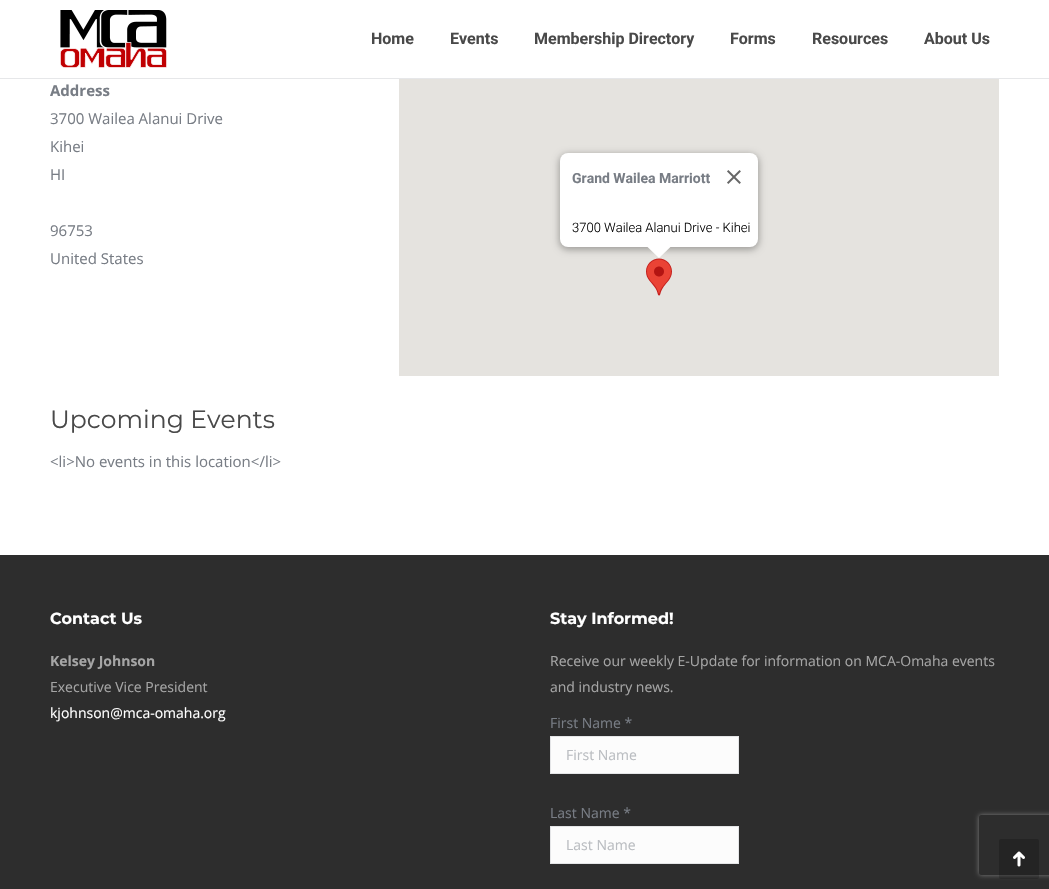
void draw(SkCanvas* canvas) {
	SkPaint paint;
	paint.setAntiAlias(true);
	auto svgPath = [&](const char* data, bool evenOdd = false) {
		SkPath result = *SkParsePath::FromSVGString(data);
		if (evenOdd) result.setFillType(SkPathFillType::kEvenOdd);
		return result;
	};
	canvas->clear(0xffffffff);
	paint.setColor(0xffe6e7e9);
	canvas->drawRect(SkRect::MakeXYWH(0, 78, 1049, 1), paint);
	canvas->drawImageRect(SkImages::DeferredFromEncodedData(SkData::MakeFromFileName("img1.png")), SkRect::MakeXYWH(60, 10, 107, 58), SkSamplingOptions());
	SkFont f1(fontMgr->matchFamilyStyle("Roboto", SkFontStyle::Bold()), 16);
	f1.setSubpixel(true);
	paint.setColor(0xff494949);
	canvas->drawString("Home", 371, 44, f1, paint);
	canvas->drawString("Events", 450, 44, f1, paint);
	canvas->drawString("Membership Directory", 534, 44, f1, paint);
	canvas->drawString("Forms", 730, 44, f1, paint);
	canvas->drawString("Resources", 812, 44, f1, paint);
	canvas->drawString("About Us", 924, 44, f1, paint);
	SkFont f2(fontMgr->matchFamilyStyle("Open Sans", SkFontStyle::Bold()), 15);
	f2.setSubpixel(true);
	paint.setColor(0xff787d85);
	canvas->drawString("Address", 50, 96, f2, paint);
	SkFont f3(fontMgr->matchFamilyStyle("Open Sans", SkFontStyle::Normal()), 15);
	f3.setSubpixel(true);
	canvas->drawString("3700 Wailea Alanui Drive", 50, 124, f3, paint);
	canvas->drawString("Kihei", 50, 152, f3, paint);
	canvas->drawString("HI", 50, 180, f3, paint);
	canvas->drawString("96753", 50, 236, f3, paint);
	canvas->drawString("United States", 50, 264, f3, paint);
	paint.setColor(0xffe5e3df);
	canvas->drawRect(SkRect::MakeXYWH(399, 79, 600, 297), paint);
	canvas->drawImageRect(SkImages::DeferredFromEncodedData(SkData::MakeFromFileName("img3.png")), SkRect::MakeXYWH(646, 258, 26, 38), SkSamplingOptions());
	paint.setColor(0x4d000000);
	paint.setMaskFilter(SkMaskFilter::MakeBlur(kNormal_SkBlurStyle, 3.5));
	canvas->drawRoundRect(SkRect::MakeXYWH(559, 154, 200, 96), 9, 9, paint);
	paint.setMaskFilter(nullptr);
	paint.setColor(0xffffffff);
	canvas->drawRoundRect(SkRect::MakeXYWH(560, 153, 198, 94), 8, 8, paint);
	SkFont f4(fontMgr->matchFamilyStyle("Roboto", SkFontStyle::Bold()), 14);
	f4.setSubpixel(true);
	paint.setColor(0xff787d85);
	canvas->drawString("Grand Wailea Marriott", 572, 183, f4, paint);
	canvas->drawImageRect(SkImages::DeferredFromEncodedData(SkData::MakeFromFileName("img2.png")), SkRect::MakeXYWH(727, 170, 14, 14), SkSamplingOptions());
	SkFont f5(fontMgr->matchFamilyStyle("Roboto", SkFontStyle(300, SkFontStyle::kNormal_Width, SkFontStyle::kUpright_Slant)), 13);
	f5.setSubpixel(true);
	paint.setColor(0xff000000);
	canvas->drawString("3700 Wailea Alanui Drive - Kihei", 572, 232, f5, paint);
	paint.setColor(0xffffffff);
	canvas->drawPath(svgPath("M647 246V246.5L659 258L671.5 246Z"), paint);
	SkFont f6(fontMgr->matchFamilyStyle("Montserrat", SkFontStyle::Normal()), 25);
	f6.setSubpixel(true);
	paint.setColor(0xff494949);
	canvas->drawString("Upcoming Events", 50, 428, f6, paint);
	paint.setColor(0xff787d85);
	canvas->drawString("<li>No events in this location</li>", 50, 467, f3, paint);
	paint.setColor(0xff2d2d2d);
	canvas->drawRect(SkRect::MakeXYWH(0, 555, 1049, 334), paint);
	SkFont f7(fontMgr->matchFamilyStyle("Montserrat", SkFontStyle::Bold()), 16);
	f7.setSubpixel(true);
	paint.setColor(0xffffffff);
	canvas->drawString("Contact Us", 50, 624, f7, paint);
	SkFont f8(fontMgr->matchFamilyStyle("Open Sans", SkFontStyle::Bold()), 14);
	f8.setSubpixel(true);
	paint.setColor(0xffa5a5a5);
	canvas->drawString("Kelsey Johnson", 50, 666, f8, paint);
	SkFont f9(fontMgr->matchFamilyStyle("Open Sans", SkFontStyle::Normal()), 14);
	f9.setSubpixel(true);
	canvas->drawString("Executive Vice President", 50, 692, f9, paint);
	paint.setColor(0xffffffff);
	canvas->drawString("kjohnson@mca-omaha.org", 50, 718, f9, paint);
	canvas->drawString("Stay Informed!", 550, 624, f7, paint);
	paint.setColor(0xffa5a5a5);
	canvas->drawString("Receive our weekly E-Update for information on MCA-Omaha events", 550, 666, f9, paint);
	canvas->drawString("and industry news.", 550, 692, f9, paint);
	paint.setColor(0xff787d85);
	canvas->drawString("First Name *", 550, 728, f9, paint);
	paint.setColor(0xfffcfcfc);
	canvas->drawRect(SkRect::MakeXYWH(550.5, 736.5, 188, 37), paint);
	paint.setStroke(true);
	paint.setStrokeWidth(1);
	paint.setColor(0xffe4e5e7);
	canvas->drawRect(SkRect::MakeXYWH(550.5, 736.5, 188, 37), paint);
	paint.setStroke(false);
	paint.setColor(0xffbabdc1);
	canvas->drawString("First Name", 566, 760, f9, paint);
	paint.setColor(0xff787d85);
	canvas->drawString("Last Name *", 550, 818, f9, paint);
	paint.setColor(0xfffcfcfc);
	canvas->drawRect(SkRect::MakeXYWH(550.5, 826.5, 188, 37), paint);
	paint.setStroke(true);
	paint.setColor(0xffe4e5e7);
	canvas->drawRect(SkRect::MakeXYWH(550.5, 826.5, 188, 37), paint);
	paint.setStroke(false);
	paint.setColor(0xffbabdc1);
	canvas->drawString("Last Name", 566, 850, f9, paint);
	canvas->save();
	canvas->clipPath(svgPath("M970 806H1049V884H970ZM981 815H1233C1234 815 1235 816 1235 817V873C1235 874 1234 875 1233 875H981C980 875 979 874 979 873V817C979 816 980 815 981 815Z", true), true);
	paint.setColor(0xff808080);
	paint.setMaskFilter(SkMaskFilter::MakeBlur(kNormal_SkBlurStyle, 2.5));
	canvas->drawRoundRect(SkRect::MakeXYWH(979, 815, 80, 60), 2, 2, paint);
	paint.setMaskFilter(nullptr);
	canvas->restore();
	paint.setColor(0x33000000);
	canvas->drawRoundRect(SkRect::MakeXYWH(999, 839, 40, 40), 2, 2, paint);
	canvas->drawImageRect(SkImages::DeferredFromEncodedData(SkData::MakeFromFileName("img4.png")), SkRect::MakeXYWH(1013, 851, 12, 16), SkSamplingOptions());
}
